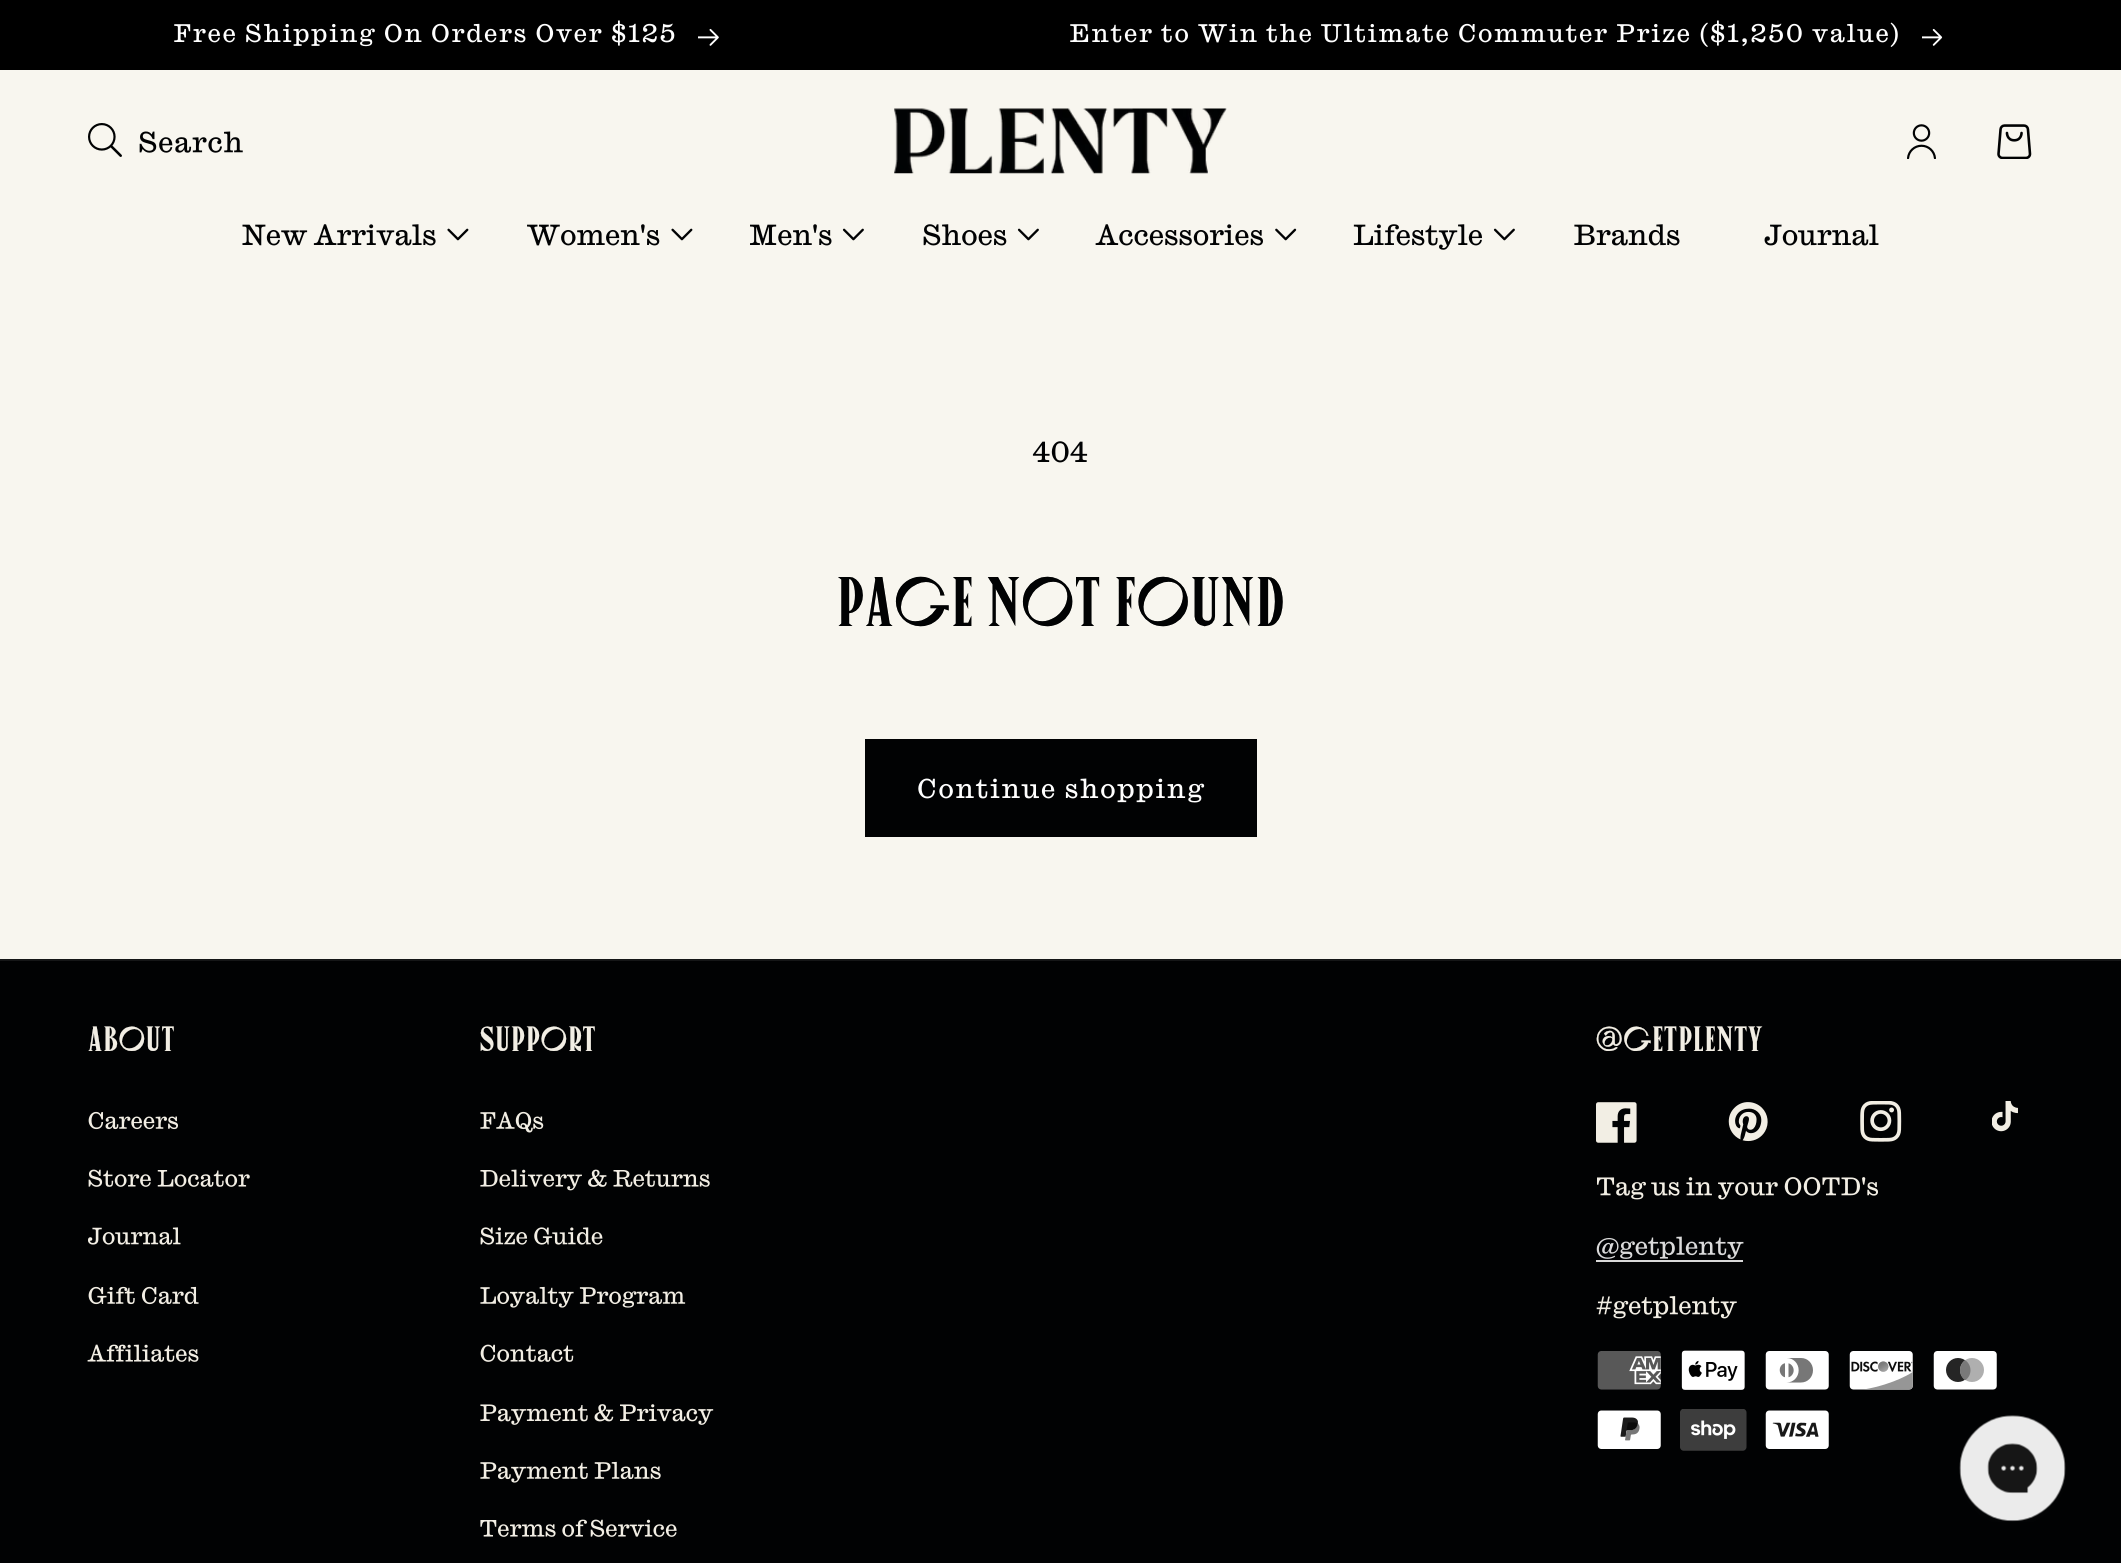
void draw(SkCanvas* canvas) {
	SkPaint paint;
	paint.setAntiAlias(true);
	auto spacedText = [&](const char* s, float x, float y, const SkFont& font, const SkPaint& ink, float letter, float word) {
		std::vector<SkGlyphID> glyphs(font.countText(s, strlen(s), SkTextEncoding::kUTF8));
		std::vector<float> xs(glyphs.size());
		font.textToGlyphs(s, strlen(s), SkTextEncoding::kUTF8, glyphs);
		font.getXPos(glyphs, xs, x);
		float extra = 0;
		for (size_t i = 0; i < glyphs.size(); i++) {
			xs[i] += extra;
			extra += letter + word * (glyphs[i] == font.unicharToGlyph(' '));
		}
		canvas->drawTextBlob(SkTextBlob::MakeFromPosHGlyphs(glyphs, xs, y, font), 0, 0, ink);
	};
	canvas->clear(0xfff8f6ef);
	paint.setColor(0xff000000);
	canvas->drawRect(SkRect::MakeXYWH(0, 0, 2121, 70), paint);
	canvas->drawImageRect(SkImages::DeferredFromEncodedData(SkData::MakeFromFileName("img1.png")), SkRect::MakeXYWH(174, 20, 501, 27), SkSamplingOptions());
	canvas->drawImageRect(SkImages::DeferredFromEncodedData(SkData::MakeFromFileName("img2.png")), SkRect::MakeXYWH(698, 28, 21, 18), SkSamplingOptions());
	canvas->drawImageRect(SkImages::DeferredFromEncodedData(SkData::MakeFromFileName("img3.png")), SkRect::MakeXYWH(1070, 20, 828, 27), SkSamplingOptions());
	canvas->drawImageRect(SkImages::DeferredFromEncodedData(SkData::MakeFromFileName("img4.png")), SkRect::MakeXYWH(1922, 28, 21, 18), SkSamplingOptions());
	canvas->drawImageRect(SkImages::DeferredFromEncodedData(SkData::MakeFromFileName("img5.png")), SkRect::MakeXYWH(88, 123, 34, 34), SkSamplingOptions());
	canvas->drawImageRect(SkImages::DeferredFromEncodedData(SkData::MakeFromFileName("img6.png")), SkRect::MakeXYWH(139, 131, 104, 22), SkSamplingOptions());
	canvas->drawImageRect(SkImages::DeferredFromEncodedData(SkData::MakeFromFileName("img7.png")), SkRect::MakeXYWH(894, 108, 333, 66), SkSamplingOptions());
	canvas->drawImageRect(SkImages::DeferredFromEncodedData(SkData::MakeFromFileName("img8.png")), SkRect::MakeXYWH(1907, 124, 29, 35), SkSamplingOptions());
	canvas->drawImageRect(SkImages::DeferredFromEncodedData(SkData::MakeFromFileName("img9.png")), SkRect::MakeXYWH(1997, 124, 35, 35), SkSamplingOptions());
	canvas->drawImageRect(SkImages::DeferredFromEncodedData(SkData::MakeFromFileName("img10.png")), SkRect::MakeXYWH(242, 224, 194, 22), SkSamplingOptions());
	canvas->drawImageRect(SkImages::DeferredFromEncodedData(SkData::MakeFromFileName("img11.png")), SkRect::MakeXYWH(447, 228, 22, 13), SkSamplingOptions());
	canvas->drawImageRect(SkImages::DeferredFromEncodedData(SkData::MakeFromFileName("img12.png")), SkRect::MakeXYWH(527, 224, 133, 22), SkSamplingOptions());
	canvas->drawImageRect(SkImages::DeferredFromEncodedData(SkData::MakeFromFileName("img11.png")), SkRect::MakeXYWH(671, 228, 22, 13), SkSamplingOptions());
	canvas->drawImageRect(SkImages::DeferredFromEncodedData(SkData::MakeFromFileName("img13.png")), SkRect::MakeXYWH(750, 224, 82, 22), SkSamplingOptions());
	canvas->drawImageRect(SkImages::DeferredFromEncodedData(SkData::MakeFromFileName("img14.png")), SkRect::MakeXYWH(842, 228, 22, 13), SkSamplingOptions());
	canvas->drawImageRect(SkImages::DeferredFromEncodedData(SkData::MakeFromFileName("img15.png")), SkRect::MakeXYWH(923, 224, 84, 22), SkSamplingOptions());
	canvas->drawImageRect(SkImages::DeferredFromEncodedData(SkData::MakeFromFileName("img14.png")), SkRect::MakeXYWH(1017, 228, 22, 13), SkSamplingOptions());
	canvas->drawImageRect(SkImages::DeferredFromEncodedData(SkData::MakeFromFileName("img16.png")), SkRect::MakeXYWH(1095, 224, 168, 22), SkSamplingOptions());
	canvas->drawImageRect(SkImages::DeferredFromEncodedData(SkData::MakeFromFileName("img17.png")), SkRect::MakeXYWH(1275, 228, 22, 13), SkSamplingOptions());
	canvas->drawImageRect(SkImages::DeferredFromEncodedData(SkData::MakeFromFileName("img18.png")), SkRect::MakeXYWH(1353, 224, 129, 26), SkSamplingOptions());
	canvas->drawImageRect(SkImages::DeferredFromEncodedData(SkData::MakeFromFileName("img14.png")), SkRect::MakeXYWH(1493, 228, 22, 13), SkSamplingOptions());
	canvas->drawImageRect(SkImages::DeferredFromEncodedData(SkData::MakeFromFileName("img19.png")), SkRect::MakeXYWH(1574, 224, 106, 22), SkSamplingOptions());
	canvas->drawImageRect(SkImages::DeferredFromEncodedData(SkData::MakeFromFileName("img20.png")), SkRect::MakeXYWH(1764, 224, 115, 22), SkSamplingOptions());
	canvas->drawImageRect(SkImages::DeferredFromEncodedData(SkData::MakeFromFileName("img21.png")), SkRect::MakeXYWH(1032, 441, 56, 22), SkSamplingOptions());
	SkFont f1(fontMgr->matchFamilyStyle("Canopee", SkFontStyle::Normal()), 70);
	f1.setSubpixel(true);
	paint.setColor(0xff010203);
	spacedText("Page not found", 836, 626, f1, paint, 1, 0);
	canvas->drawRect(SkRect::MakeXYWH(865, 739, 392, 98), paint);
	canvas->drawImageRect(SkImages::DeferredFromEncodedData(SkData::MakeFromFileName("img22.png")), SkRect::MakeXYWH(918, 778, 287, 25), SkSamplingOptions());
	canvas->drawRect(SkRect::MakeXYWH(0, 961, 2121, 602), paint);
	paint.setColor(0xff151617);
	canvas->drawRect(SkRect::MakeXYWH(0, 959, 2121, 2), paint);
	SkFont f2(fontMgr->matchFamilyStyle("Canopee", SkFontStyle::Normal()), 35);
	f2.setSubpixel(true);
	paint.setColor(0xfff2eee4);
	spacedText("About", 88, 1051, f2, paint, 1, 0);
	canvas->drawImageRect(SkImages::DeferredFromEncodedData(SkData::MakeFromFileName("img23.png")), SkRect::MakeXYWH(88, 1111, 90, 19), SkSamplingOptions());
	canvas->drawImageRect(SkImages::DeferredFromEncodedData(SkData::MakeFromFileName("img24.png")), SkRect::MakeXYWH(88, 1169, 162, 18), SkSamplingOptions());
	canvas->drawImageRect(SkImages::DeferredFromEncodedData(SkData::MakeFromFileName("img25.png")), SkRect::MakeXYWH(88, 1227, 93, 18), SkSamplingOptions());
	canvas->drawImageRect(SkImages::DeferredFromEncodedData(SkData::MakeFromFileName("img26.png")), SkRect::MakeXYWH(88, 1286, 111, 19), SkSamplingOptions());
	canvas->drawImageRect(SkImages::DeferredFromEncodedData(SkData::MakeFromFileName("img27.png")), SkRect::MakeXYWH(87, 1344, 112, 18), SkSamplingOptions());
	spacedText("Support", 480, 1051, f2, paint, 1, 0);
	canvas->drawImageRect(SkImages::DeferredFromEncodedData(SkData::MakeFromFileName("img28.png")), SkRect::MakeXYWH(480, 1111, 64, 22), SkSamplingOptions());
	canvas->drawImageRect(SkImages::DeferredFromEncodedData(SkData::MakeFromFileName("img29.png")), SkRect::MakeXYWH(480, 1169, 230, 22), SkSamplingOptions());
	canvas->drawImageRect(SkImages::DeferredFromEncodedData(SkData::MakeFromFileName("img30.png")), SkRect::MakeXYWH(480, 1227, 123, 18), SkSamplingOptions());
	canvas->drawImageRect(SkImages::DeferredFromEncodedData(SkData::MakeFromFileName("img31.png")), SkRect::MakeXYWH(480, 1286, 206, 22), SkSamplingOptions());
	canvas->drawImageRect(SkImages::DeferredFromEncodedData(SkData::MakeFromFileName("img32.png")), SkRect::MakeXYWH(480, 1344, 94, 18), SkSamplingOptions());
	canvas->drawImageRect(SkImages::DeferredFromEncodedData(SkData::MakeFromFileName("img33.png")), SkRect::MakeXYWH(480, 1404, 234, 21), SkSamplingOptions());
	canvas->drawImageRect(SkImages::DeferredFromEncodedData(SkData::MakeFromFileName("img34.png")), SkRect::MakeXYWH(480, 1461, 181, 22), SkSamplingOptions());
	canvas->drawImageRect(SkImages::DeferredFromEncodedData(SkData::MakeFromFileName("img35.png")), SkRect::MakeXYWH(480, 1519, 197, 18), SkSamplingOptions());
	spacedText("@GetPlenty", 1596, 1051, f2, paint, 1, 0);
	canvas->drawImageRect(SkImages::DeferredFromEncodedData(SkData::MakeFromFileName("img36.png")), SkRect::MakeXYWH(1596, 1102, 41, 41), SkSamplingOptions());
	canvas->drawImageRect(SkImages::DeferredFromEncodedData(SkData::MakeFromFileName("img37.png")), SkRect::MakeXYWH(1728, 1102, 40, 40), SkSamplingOptions());
	canvas->drawImageRect(SkImages::DeferredFromEncodedData(SkData::MakeFromFileName("img38.png")), SkRect::MakeXYWH(1860, 1101, 42, 41), SkSamplingOptions());
	canvas->drawImageRect(SkImages::DeferredFromEncodedData(SkData::MakeFromFileName("img39.png")), SkRect::MakeXYWH(1992, 1101, 26, 31), SkSamplingOptions());
	canvas->drawImageRect(SkImages::DeferredFromEncodedData(SkData::MakeFromFileName("img40.png")), SkRect::MakeXYWH(1597, 1177, 281, 23), SkSamplingOptions());
	canvas->drawImageRect(SkImages::DeferredFromEncodedData(SkData::MakeFromFileName("img41.png")), SkRect::MakeXYWH(1596, 1236, 148, 23), SkSamplingOptions());
	paint.setColor(0xffd9d9d9);
	canvas->drawRect(SkRect::MakeXYWH(1596, 1260, 147, 2), paint);
	canvas->drawImageRect(SkImages::DeferredFromEncodedData(SkData::MakeFromFileName("img42.png")), SkRect::MakeXYWH(1596, 1296, 141, 23), SkSamplingOptions());
	canvas->drawImageRect(SkImages::DeferredFromEncodedData(SkData::MakeFromFileName("img43.png")), SkRect::MakeXYWH(1597, 1351, 64, 39), SkSamplingOptions());
	canvas->drawImageRect(SkImages::DeferredFromEncodedData(SkData::MakeFromFileName("img44.png")), SkRect::MakeXYWH(1681, 1350, 64, 40), SkSamplingOptions());
	canvas->drawImageRect(SkImages::DeferredFromEncodedData(SkData::MakeFromFileName("img45.png")), SkRect::MakeXYWH(1765, 1351, 64, 39), SkSamplingOptions());
	canvas->drawImageRect(SkImages::DeferredFromEncodedData(SkData::MakeFromFileName("img46.png")), SkRect::MakeXYWH(1849, 1351, 64, 39), SkSamplingOptions());
	canvas->drawImageRect(SkImages::DeferredFromEncodedData(SkData::MakeFromFileName("img47.png")), SkRect::MakeXYWH(1933, 1351, 64, 39), SkSamplingOptions());
	canvas->drawImageRect(SkImages::DeferredFromEncodedData(SkData::MakeFromFileName("img48.png")), SkRect::MakeXYWH(1597, 1410, 64, 39), SkSamplingOptions());
	canvas->drawImageRect(SkImages::DeferredFromEncodedData(SkData::MakeFromFileName("img49.png")), SkRect::MakeXYWH(1680, 1409, 67, 42), SkSamplingOptions());
	canvas->drawImageRect(SkImages::DeferredFromEncodedData(SkData::MakeFromFileName("img50.png")), SkRect::MakeXYWH(1765, 1410, 64, 39), SkSamplingOptions());
	canvas->drawImageRect(SkImages::DeferredFromEncodedData(SkData::MakeFromFileName("img51.png")), SkRect::MakeXYWH(1959, 1415, 107, 107), SkSamplingOptions());
}
